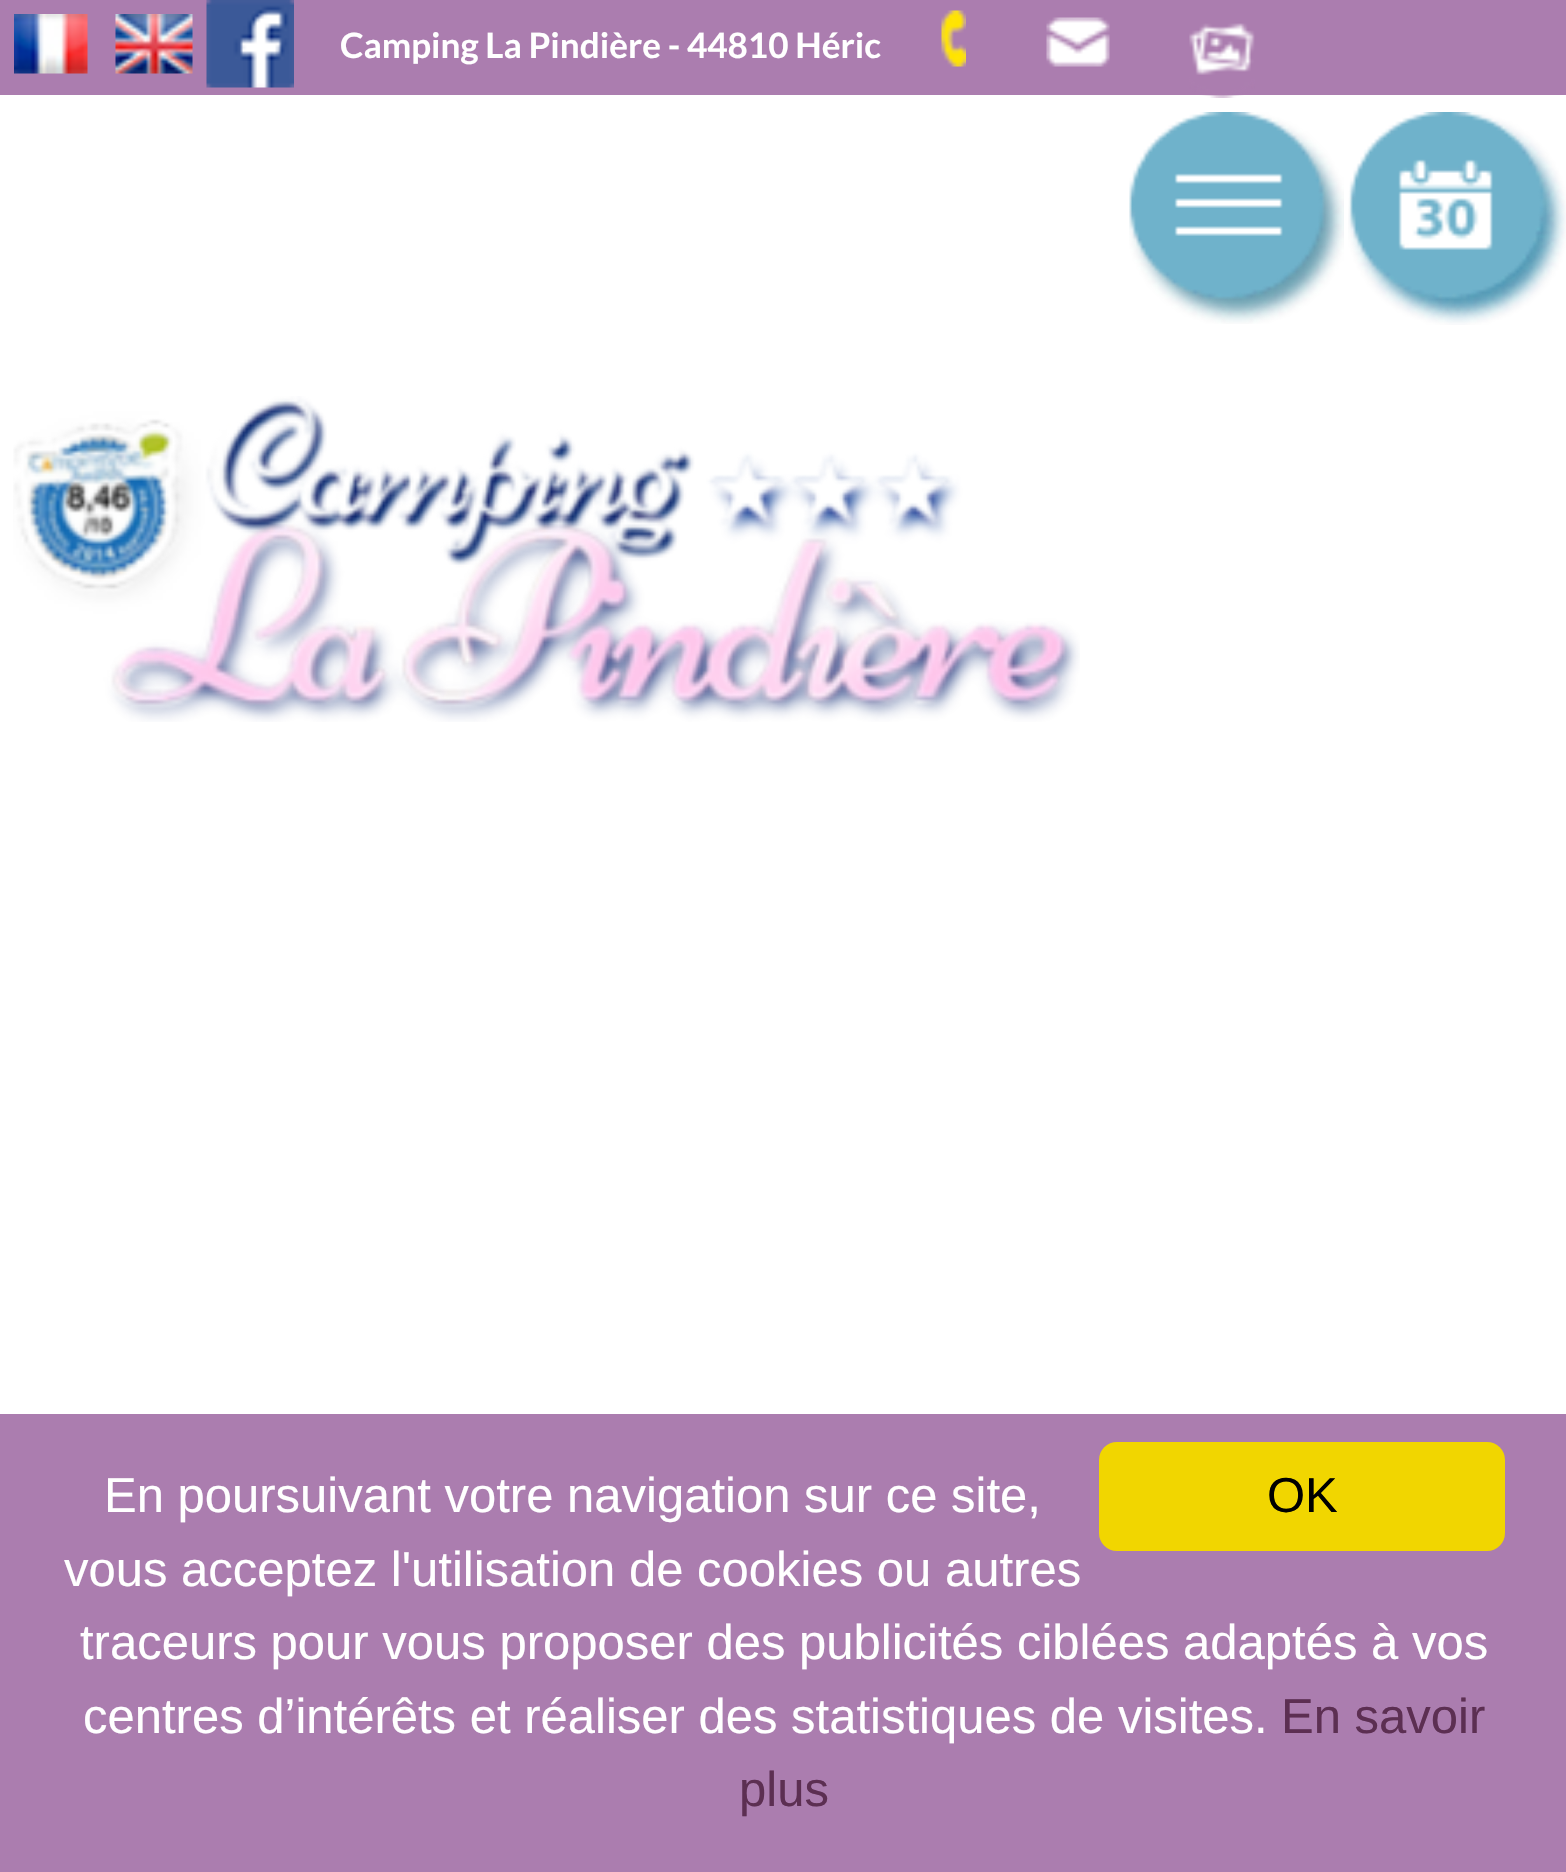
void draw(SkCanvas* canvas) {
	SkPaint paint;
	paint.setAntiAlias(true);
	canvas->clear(0xffffffff);
	paint.setColor(0xffab7daf);
	canvas->drawRect(SkRect::MakeXYWH(0, 0, 1566, 95), paint);
	canvas->drawImageRect(SkImages::DeferredFromEncodedData(SkData::MakeFromFileName("img1.png")), SkRect::MakeXYWH(14, 14, 74, 60), SkSamplingOptions());
	canvas->drawImageRect(SkImages::DeferredFromEncodedData(SkData::MakeFromFileName("img2.png")), SkRect::MakeXYWH(115, 14, 78, 60), SkSamplingOptions());
	canvas->drawImageRect(SkImages::DeferredFromEncodedData(SkData::MakeFromFileName("img3.png")), SkRect::MakeXYWH(206, 0, 88, 88), SkSamplingOptions());
	SkFont f1(fontMgr->matchFamilyStyle("Lato", SkFontStyle::Bold()), 35);
	f1.setSubpixel(true);
	paint.setColor(0xffffffff);
	canvas->drawString("Camping La Pindière - 44810 Héric", 340, 58, f1, paint);
	canvas->drawImageRect(SkImages::DeferredFromEncodedData(SkData::MakeFromFileName("img4.png")), SkRect::MakeXYWH(941, 10, 25, 57), SkSamplingOptions());
	canvas->drawImageRect(SkImages::DeferredFromEncodedData(SkData::MakeFromFileName("img5.png")), SkRect::MakeXYWH(1046, 17, 64, 50), SkSamplingOptions());
	canvas->drawImageRect(SkImages::DeferredFromEncodedData(SkData::MakeFromFileName("img6.png")), SkRect::MakeXYWH(1189, 23, 66, 75), SkSamplingOptions());
	canvas->drawImageRect(SkImages::DeferredFromEncodedData(SkData::MakeFromFileName("img7.png")), SkRect::MakeXYWH(1129, 112, 215, 212), SkSamplingOptions());
	canvas->drawImageRect(SkImages::DeferredFromEncodedData(SkData::MakeFromFileName("img8.png")), SkRect::MakeXYWH(1348, 112, 218, 213), SkSamplingOptions());
	canvas->drawImageRect(SkImages::DeferredFromEncodedData(SkData::MakeFromFileName("img9.png")), SkRect::MakeXYWH(13, 396, 1067, 326), SkSamplingOptions());
	paint.setColor(0xffab7daf);
	canvas->drawRect(SkRect::MakeXYWH(0, 1414, 1566, 458), paint);
	SkFont f2(fontMgr->matchFamilyStyle("Liberation Sans", SkFontStyle::Normal()), 49);
	f2.setSubpixel(true);
	paint.setColor(0xffffffff);
	canvas->drawString("En poursuivant votre navigation sur ce site,", 104, 1512, f2, paint);
	canvas->drawString("vous acceptez l'utilisation de cookies ou autres", 64, 1586, f2, paint);
	canvas->drawString("traceurs pour vous proposer des publicités ciblées adaptés à vos", 80, 1659, f2, paint);
	canvas->drawString("centres d’intérêts et réaliser des statistiques de visites.", 83, 1733, f2, paint);
	paint.setColor(0xff5c2f52);
	canvas->drawString("En savoir", 1281, 1733, f2, paint);
	canvas->drawString("plus", 739, 1806, f2, paint);
	paint.setColor(0xfff1d600);
	canvas->drawRoundRect(SkRect::MakeXYWH(1099, 1442, 406, 109), 18, 18, paint);
	paint.setColor(0xff000000);
	canvas->drawString("OK", 1267, 1512, f2, paint);
}
